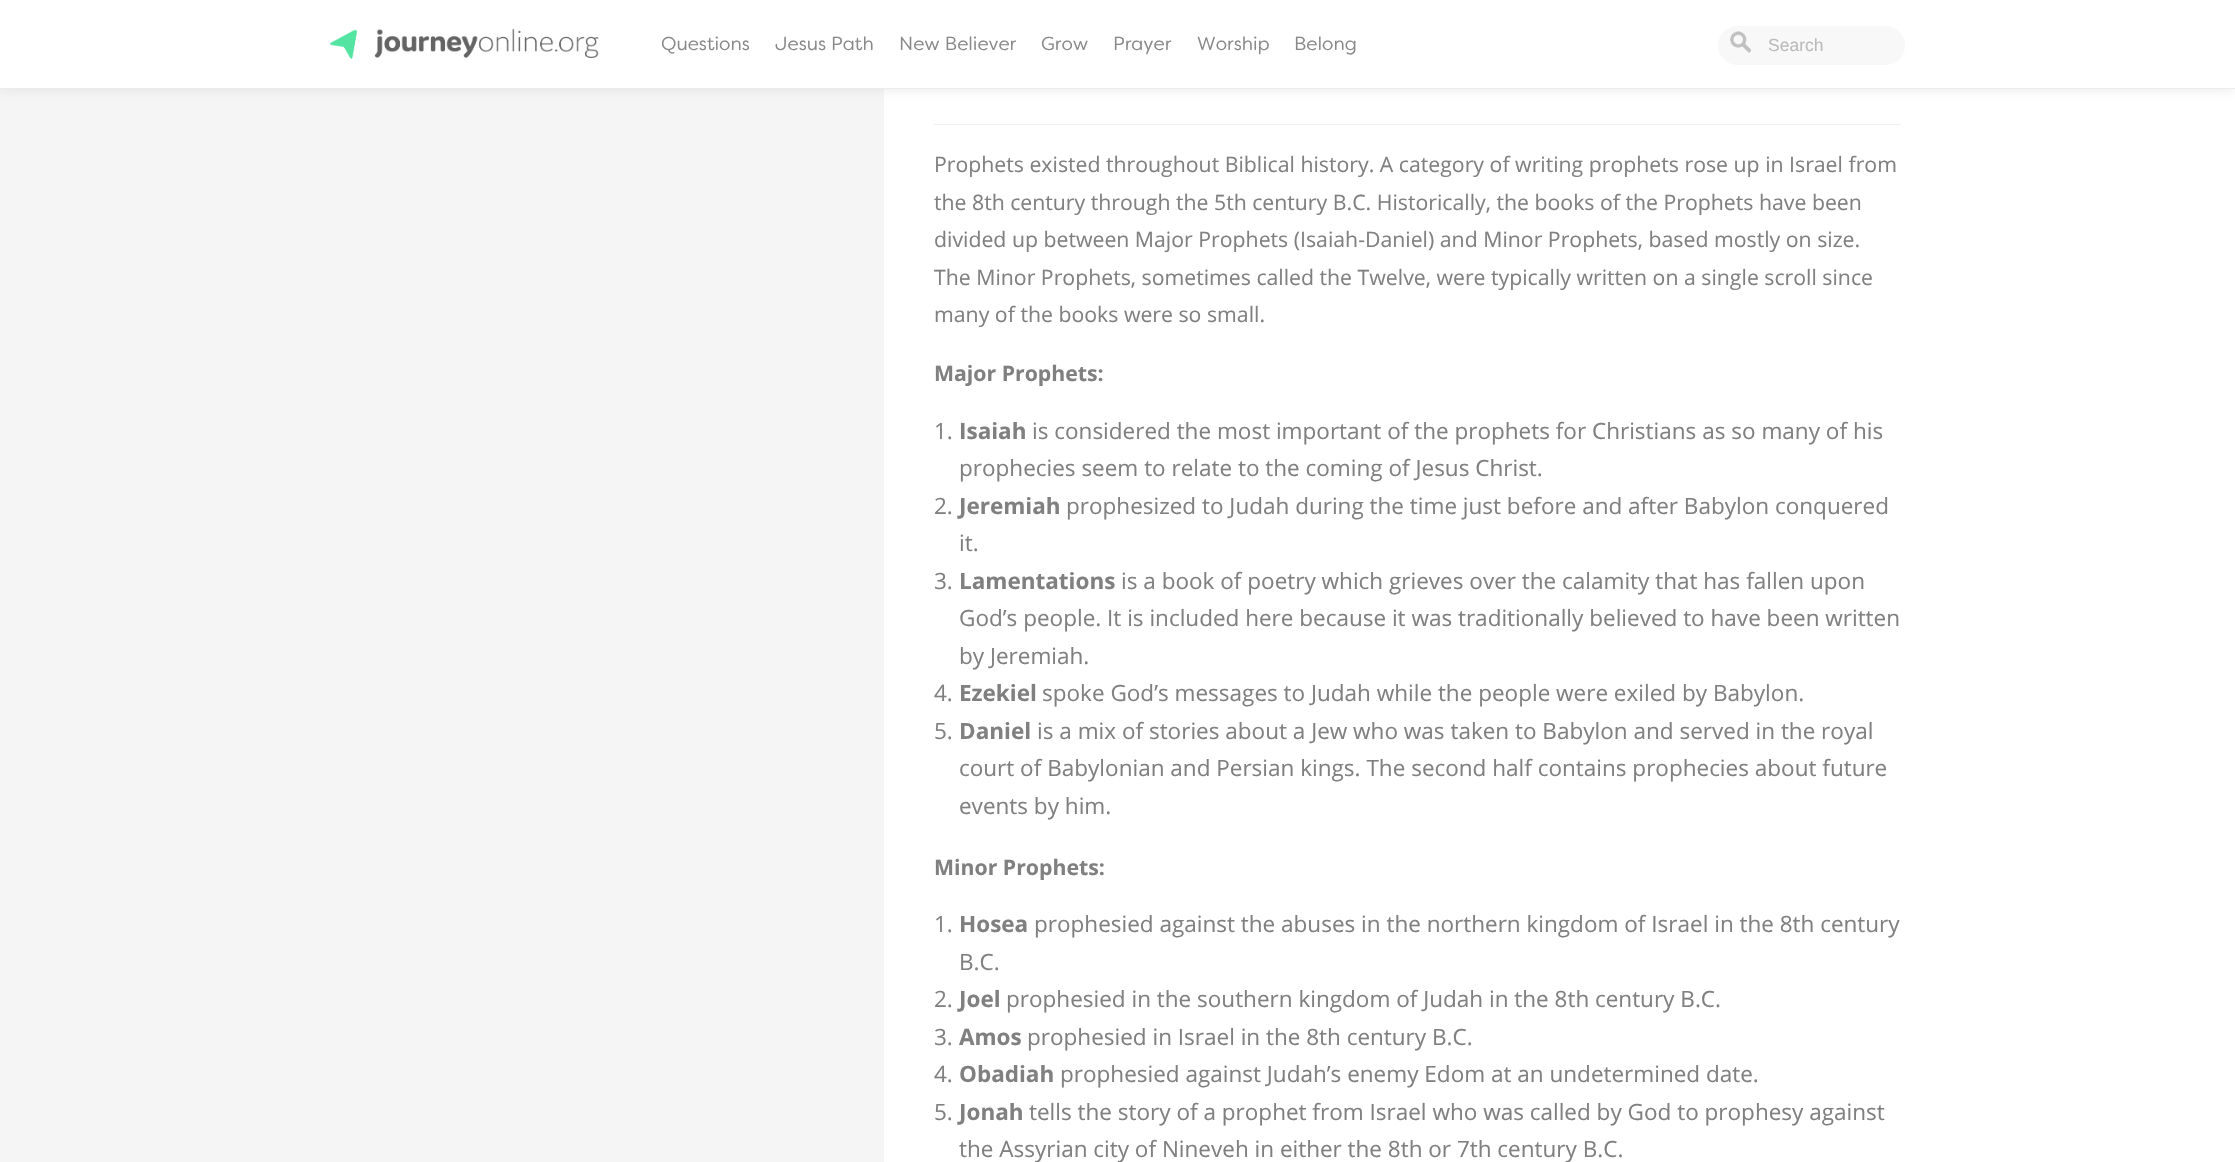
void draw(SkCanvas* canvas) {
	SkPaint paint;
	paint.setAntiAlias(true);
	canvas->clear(0xffffffff);
	{
		const SkColor colors[] = {0xfff5f5f5, 0xffffffff};
		const float stops[] = {0.53, 0.54};
		const SkPoint ends[] = {{0, 60}, {2235, 60}};
		paint.setShader(SkGradientShader::MakeLinear(ends, colors, stops, 2, SkTileMode::kClamp));
		paint.setAlpha(255);
	}
	canvas->drawRect(SkRect::MakeXYWH(0, 89, 1201, 1073), paint);
	paint.setShader(nullptr);
	paint.setColor(0xffffffff);
	canvas->drawRect(SkRect::MakeXYWH(884, 89, 317, 1073), paint);
	paint.setColor(0x33888888);
	paint.setMaskFilter(SkMaskFilter::MakeBlur(kNormal_SkBlurStyle, 6));
	canvas->drawRect(SkRect::MakeXYWH(0, 0, 2235, 89), paint);
	paint.setMaskFilter(nullptr);
	paint.setColor(0xffffffff);
	canvas->drawRect(SkRect::MakeXYWH(0, 0, 2235, 88), paint);
	paint.setColor(0xffedecec);
	canvas->drawRect(SkRect::MakeXYWH(0, 88, 2235, 1), paint);
	canvas->drawImageRect(SkImages::DeferredFromEncodedData(SkData::MakeFromFileName("img1.png")), SkRect::MakeXYWH(330, 28, 269, 31), SkSamplingOptions());
	SkFont f1(fontMgr->matchFamilyStyle("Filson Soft", SkFontStyle::Normal()), 18.75);
	f1.setSubpixel(true);
	paint.setColor(0xff888888);
	canvas->drawString("Questions", 661, 50, f1, paint);
	canvas->drawString("Jesus Path", 775, 50, f1, paint);
	canvas->drawString("New Believer", 899, 50, f1, paint);
	canvas->drawString("Grow", 1041, 50, f1, paint);
	canvas->drawString("Prayer", 1113, 50, f1, paint);
	canvas->drawString("Worship", 1197, 50, f1, paint);
	canvas->drawString("Belong", 1294, 50, f1, paint);
	paint.setColor(0xfff8f8f8);
	canvas->drawRoundRect(SkRect::MakeXYWH(1718, 26, 187, 39), 19.5, 19.5, paint);
	canvas->drawImageRect(SkImages::DeferredFromEncodedData(SkData::MakeFromFileName("img2.png")), SkRect::MakeXYWH(1730, 31, 21, 22), SkSamplingOptions());
	SkFont f2(fontMgr->matchFamilyStyle("Liberation Sans", SkFontStyle::Normal()), 17.5);
	f2.setSubpixel(true);
	paint.setColor(0xffbbbbbb);
	canvas->drawString("Search", 1768, 51, f2, paint);
	paint.setColor(0xfff0f0f0);
	canvas->drawRect(SkRect::MakeXYWH(934, 124, 967, 1), paint);
	SkFont f3(fontMgr->matchFamilyStyle("Open Sans", SkFontStyle::Normal()), 21.25);
	f3.setSubpixel(true);
	paint.setColor(0xff808080);
	canvas->drawString("Prophets existed throughout Biblical history. A category of writing prophets rose up in Israel from", 934, 172, f3, paint);
	canvas->drawString("the 8th century through the 5th century B.C. Historically, the books of the Prophets have been", 934, 210, f3, paint);
	canvas->drawString("divided up between Major Prophets (Isaiah-Daniel) and Minor Prophets, based mostly on size.", 934, 247, f3, paint);
	canvas->drawString("The Minor Prophets, sometimes called the Twelve, were typically written on a single scroll since", 934, 285, f3, paint);
	canvas->drawString("many of the books were so small.", 934, 322, f3, paint);
	SkFont f4(fontMgr->matchFamilyStyle("Open Sans", SkFontStyle::Bold()), 21.25);
	f4.setSubpixel(true);
	canvas->drawString("Major Prophets:", 934, 381, f4, paint);
	SkFont f5(fontMgr->matchFamilyStyle("Open Sans", SkFontStyle::Normal()), 22.5);
	f5.setSubpixel(true);
	canvas->drawString("1.", 934, 439, f5, paint);
	SkFont f6(fontMgr->matchFamilyStyle("Open Sans", SkFontStyle::Bold()), 22.5);
	f6.setSubpixel(true);
	canvas->drawString("Isaiah", 959, 439, f6, paint);
	canvas->drawString("is considered the most important of the prophets for Christians as so many of his", 1032, 439, f5, paint);
	canvas->drawString("prophecies seem to relate to the coming of Jesus Christ.", 959, 476, f5, paint);
	canvas->drawString("2.", 934, 514, f5, paint);
	canvas->drawString("Jeremiah", 959, 514, f6, paint);
	canvas->drawString("prophesized to Judah during the time just before and after Babylon conquered", 1066, 514, f5, paint);
	canvas->drawString("it.", 959, 551, f5, paint);
	canvas->drawString("3.", 934, 589, f5, paint);
	canvas->drawString("Lamentations", 959, 589, f6, paint);
	canvas->drawString("is a book of poetry which grieves over the calamity that has fallen upon", 1121, 589, f5, paint);
	canvas->drawString("God’s people. It is included here because it was traditionally believed to have been written", 959, 626, f5, paint);
	canvas->drawString("by Jeremiah.", 959, 664, f5, paint);
	canvas->drawString("4.", 934, 701, f5, paint);
	canvas->drawString("Ezekiel", 959, 701, f6, paint);
	canvas->drawString("spoke God’s messages to Judah while the people were exiled by Babylon.", 1042, 701, f5, paint);
	canvas->drawString("5.", 934, 739, f5, paint);
	canvas->drawString("Daniel", 959, 739, f6, paint);
	canvas->drawString("is a mix of stories about a Jew who was taken to Babylon and served in the royal", 1037, 739, f5, paint);
	canvas->drawString("court of Babylonian and Persian kings. The second half contains prophecies about future", 959, 776, f5, paint);
	canvas->drawString("events by him.", 959, 814, f5, paint);
	canvas->drawString("Minor Prophets:", 934, 875, f4, paint);
	canvas->drawString("1.", 934, 932, f5, paint);
	canvas->drawString("Hosea", 959, 932, f6, paint);
	canvas->drawString("prophesied against the abuses in the northern kingdom of Israel in the 8th century", 1034, 932, f5, paint);
	canvas->drawString("B.C.", 959, 970, f5, paint);
	canvas->drawString("2.", 934, 1007, f5, paint);
	canvas->drawString("Joel", 959, 1007, f6, paint);
	canvas->drawString("prophesied in the southern kingdom of Judah in the 8th century B.C.", 1006, 1007, f5, paint);
	canvas->drawString("3.", 934, 1045, f5, paint);
	canvas->drawString("Amos", 959, 1045, f6, paint);
	canvas->drawString("prophesied in Israel in the 8th century B.C.", 1027, 1045, f5, paint);
	canvas->drawString("4.", 934, 1082, f5, paint);
	canvas->drawString("Obadiah", 959, 1082, f6, paint);
	canvas->drawString("prophesied against Judah’s enemy Edom at an undetermined date.", 1060, 1082, f5, paint);
	canvas->drawString("5.", 934, 1120, f5, paint);
	canvas->drawString("Jonah", 959, 1120, f6, paint);
	canvas->drawString("tells the story of a prophet from Israel who was called by God to prophesy against", 1029, 1120, f5, paint);
	canvas->drawString("the Assyrian city of Nineveh in either the 8th or 7th century B.C.", 959, 1157, f5, paint);
}
